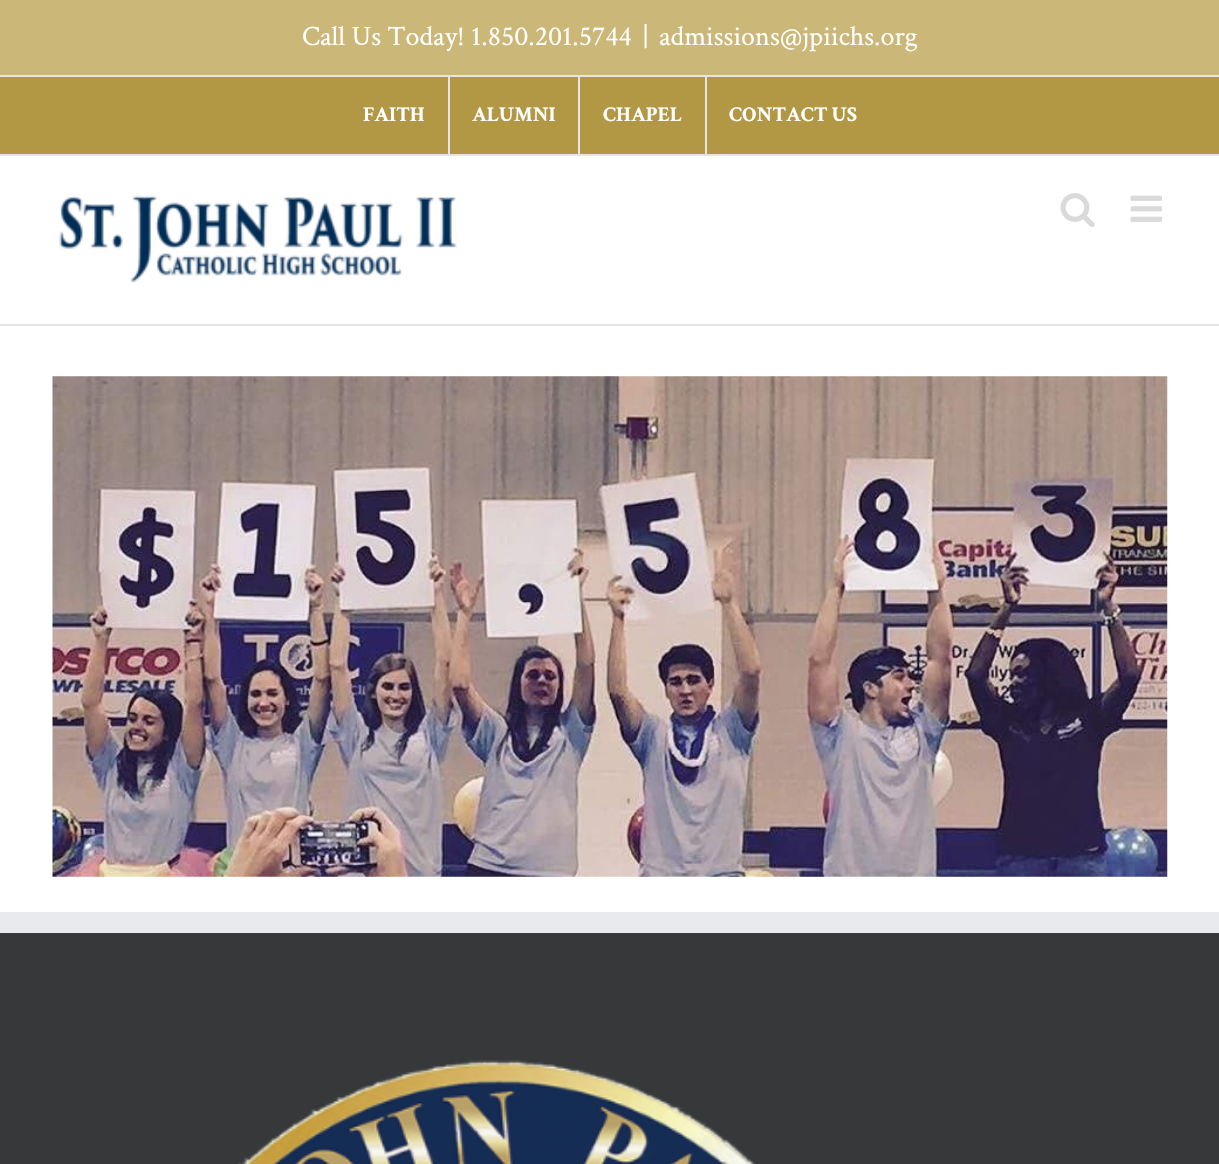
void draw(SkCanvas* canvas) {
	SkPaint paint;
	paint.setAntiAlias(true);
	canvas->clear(0xffffffff);
	paint.setColor(0xffcbb778);
	canvas->drawRect(SkRect::MakeXYWH(0, 0, 1219, 75), paint);
	paint.setColor(0xffe5e5e5);
	canvas->drawRect(SkRect::MakeXYWH(0, 154, 1219, 2), paint);
	canvas->drawRect(SkRect::MakeXYWH(0, 75, 1219, 2), paint);
	SkFont f1(fontMgr->matchFamilyStyle("Crimson Text", SkFontStyle::Normal()), 28);
	f1.setSubpixel(true);
	paint.setColor(0xffffffff);
	canvas->drawString("Call Us Today! 1.850.201.5744", 302, 45, f1, paint);
	canvas->drawString("|", 642, 45, f1, paint);
	canvas->drawString("admissions@jpiichs.org", 659, 45, f1, paint);
	paint.setColor(0xffb29845);
	canvas->drawRect(SkRect::MakeXYWH(0, 77, 1219, 77), paint);
	SkFont f2(fontMgr->matchFamilyStyle("Crimson Text", SkFontStyle::Bold()), 21);
	f2.setSubpixel(true);
	paint.setColor(0xffffffff);
	canvas->drawString("FAITH", 363, 121, f2, paint);
	paint.setColor(0xffe5e5e5);
	canvas->drawRect(SkRect::MakeXYWH(448, 77, 2, 77), paint);
	paint.setColor(0xffffffff);
	canvas->drawString("ALUMNI", 472, 121, f2, paint);
	paint.setColor(0xffe5e5e5);
	canvas->drawRect(SkRect::MakeXYWH(578, 77, 2, 77), paint);
	paint.setColor(0xffffffff);
	canvas->drawString("CHAPEL", 603, 121, f2, paint);
	paint.setColor(0xffe5e5e5);
	canvas->drawRect(SkRect::MakeXYWH(705, 77, 2, 77), paint);
	paint.setColor(0xffffffff);
	canvas->drawString("CONTACT US", 729, 121, f2, paint);
	paint.setColor(0xffe5e5e5);
	canvas->drawRect(SkRect::MakeXYWH(0, 324, 1219, 2), paint);
	canvas->drawImageRect(SkImages::DeferredFromEncodedData(SkData::MakeFromFileName("img1.png")), SkRect::MakeXYWH(59, 195, 398, 88), SkSamplingOptions());
	canvas->drawImageRect(SkImages::DeferredFromEncodedData(SkData::MakeFromFileName("img2.png")), SkRect::MakeXYWH(1060, 193, 35, 34), SkSamplingOptions());
	canvas->drawImageRect(SkImages::DeferredFromEncodedData(SkData::MakeFromFileName("img3.png")), SkRect::MakeXYWH(1130, 195, 32, 27), SkSamplingOptions());
	canvas->drawImageRect(SkImages::DeferredFromEncodedData(SkData::MakeFromFileName("img4.png")), SkRect::MakeXYWH(52, 376, 1116, 501), SkSamplingOptions());
	paint.setColor(0xff363839);
	canvas->drawRect(SkRect::MakeXYWH(0, 933, 1219, 231), paint);
	paint.setColor(0xffe9eaee);
	canvas->drawRect(SkRect::MakeXYWH(0, 912, 1219, 21), paint);
	canvas->drawImageRect(SkImages::DeferredFromEncodedData(SkData::MakeFromFileName("img5.png")), SkRect::MakeXYWH(238, 1060, 518, 104), SkSamplingOptions());
}
